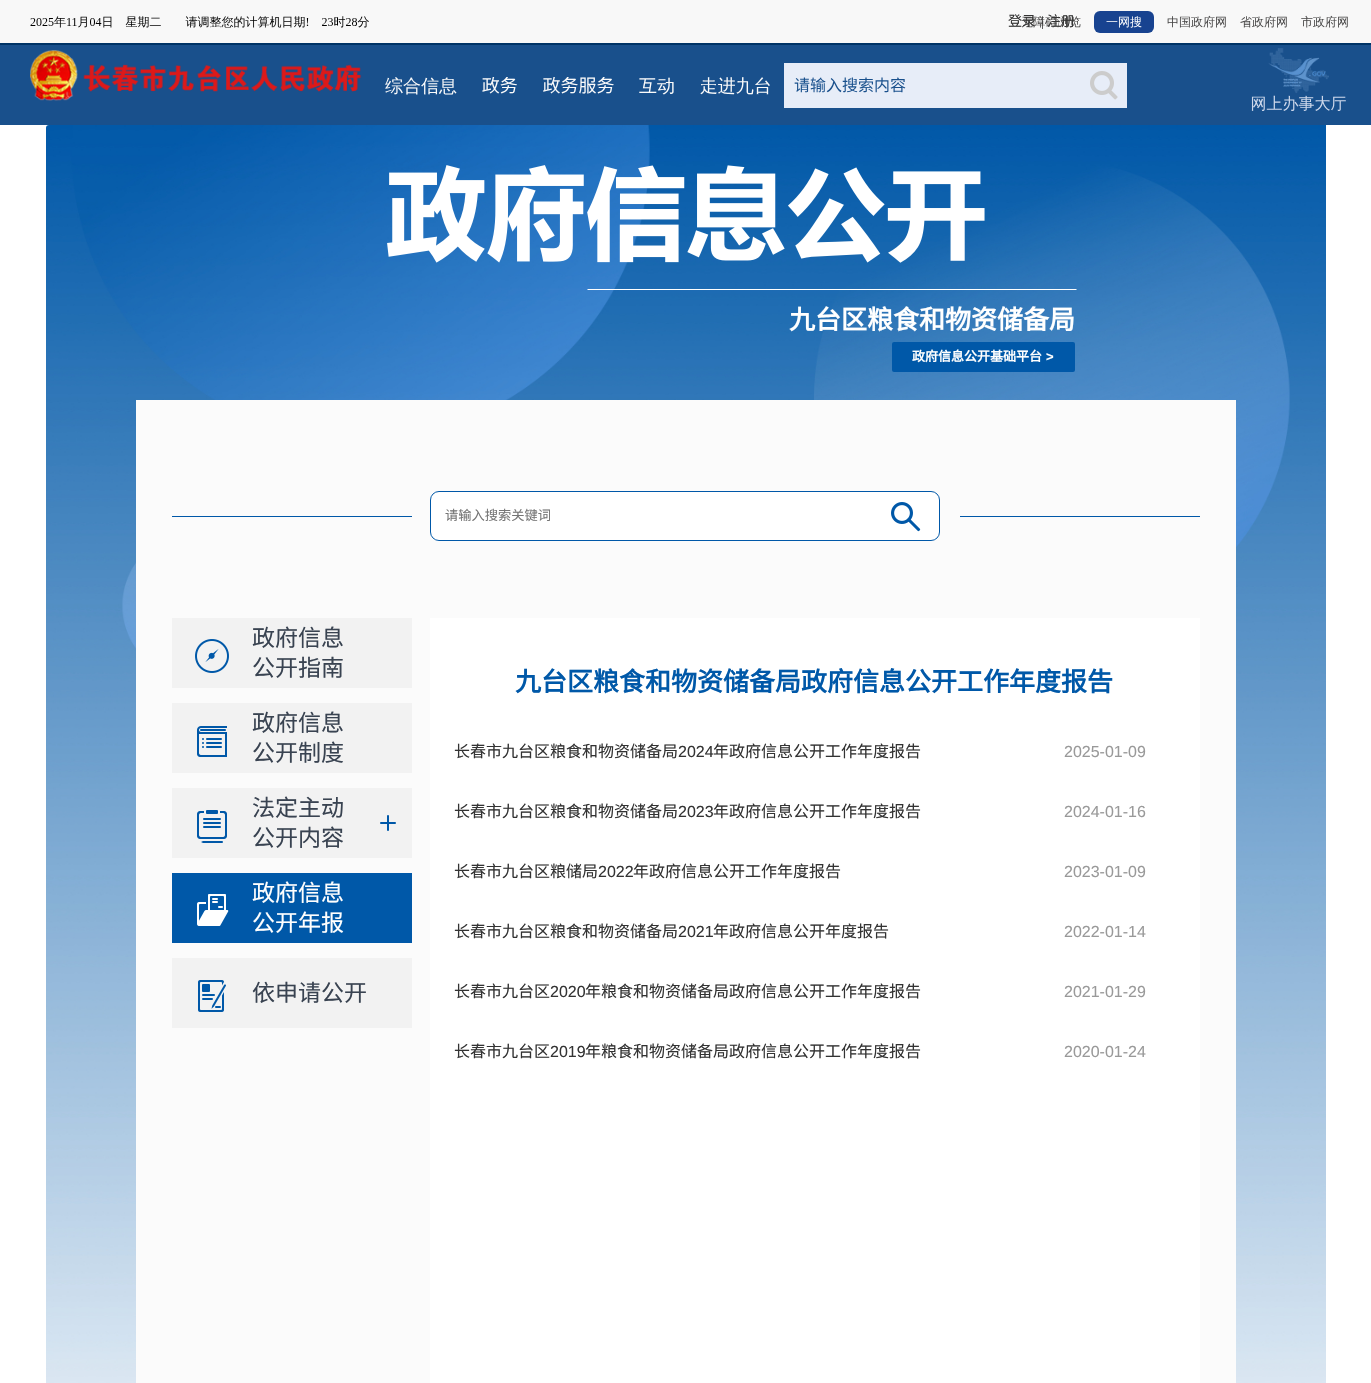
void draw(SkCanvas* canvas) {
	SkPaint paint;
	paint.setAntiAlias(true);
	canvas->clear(0xffffffff);
	canvas->drawImageRect(SkImages::DeferredFromEncodedData(SkData::MakeFromFileName("img1.png")), SkRect::MakeXYWH(0, 0, 1371, 125), SkSamplingOptions());
	SkFont f1(fontMgr->matchFamilyStyle("Noto Sans CJK SC", SkFontStyle::Normal()), 14);
	f1.setSubpixel(true);
	paint.setColor(0xff333333);
	canvas->drawString("登录", 1008, 26, f1, paint);
	SkFont f2(fontMgr->matchFamilyStyle("Liberation Serif", SkFontStyle::Normal()), 14);
	f2.setSubpixel(true);
	canvas->drawString("|", 1041, 26, f2, paint);
	canvas->drawString("注册", 1047, 26, f1, paint);
	canvas->drawImageRect(SkImages::DeferredFromEncodedData(SkData::MakeFromFileName("img2.png")), SkRect::MakeXYWH(46, 125, 1280, 1258), SkSamplingOptions());
	canvas->drawImageRect(SkImages::DeferredFromEncodedData(SkData::MakeFromFileName("img3.png")), SkRect::MakeXYWH(387, 165, 690, 125), SkSamplingOptions());
	SkFont f3(fontMgr->matchFamilyStyle("Noto Sans CJK SC", SkFontStyle::Bold()), 26);
	f3.setSubpixel(true);
	paint.setColor(0xffffffff);
	canvas->drawString("九台区粮食和物资储备局", 789, 329, f3, paint);
	paint.setColor(0xff0058a8);
	canvas->drawRoundRect(SkRect::MakeXYWH(892, 342, 183, 30), 2, 2, paint);
	SkFont f4(fontMgr->matchFamilyStyle("Noto Sans CJK SC", SkFontStyle::Bold()), 13);
	f4.setSubpixel(true);
	paint.setColor(0xffffffff);
	canvas->drawString("政府信息公开基础平台", 912, 361, f4, paint);
	SkFont f5(fontMgr->matchFamilyStyle("Liberation Sans", SkFontStyle::Bold()), 13);
	f5.setSubpixel(true);
	canvas->drawString(">", 1046, 361, f5, paint);
	paint.setColor(0xfffbfbfb);
	canvas->drawRect(SkRect::MakeXYWH(136, 400, 1100, 983), paint);
	paint.setColor(0xff0058a8);
	canvas->drawRect(SkRect::MakeXYWH(172, 516, 240, 1), paint);
	paint.setColor(0xffffffff);
	canvas->drawRoundRect(SkRect::MakeXYWH(430.5, 491.5, 509, 49), 8.5, 8.5, paint);
	paint.setStroke(true);
	paint.setStrokeWidth(1);
	paint.setColor(0xff0058a8);
	canvas->drawRoundRect(SkRect::MakeXYWH(430.5, 491.5, 509, 49), 8.5, 8.5, paint);
	SkFont f6(fontMgr->matchFamilyStyle("Noto Sans CJK SC", SkFontStyle::Normal()), 13.25);
	f6.setSubpixel(true);
	paint.setStroke(false);
	paint.setColor(0xff757575);
	canvas->drawString("请输入搜索关键词", 445, 520, f6, paint);
	canvas->drawImageRect(SkImages::DeferredFromEncodedData(SkData::MakeFromFileName("img4.png")), SkRect::MakeXYWH(891, 502, 30, 30), SkSamplingOptions());
	paint.setColor(0xff0058a8);
	canvas->drawRect(SkRect::MakeXYWH(960, 516, 240, 1), paint);
	paint.setColor(0xfff2f2f2);
	canvas->drawRect(SkRect::MakeXYWH(172, 618, 240, 70), paint);
	canvas->drawImageRect(SkImages::DeferredFromEncodedData(SkData::MakeFromFileName("img5.png")), SkRect::MakeXYWH(195, 639, 34, 34), SkSamplingOptions());
	SkFont f7(fontMgr->matchFamilyStyle("Noto Sans CJK SC", SkFontStyle::Normal()), 23);
	f7.setSubpixel(true);
	paint.setColor(0xff394351);
	canvas->drawString("政府信息", 252, 646, f7, paint);
	canvas->drawString("公开指南", 252, 676, f7, paint);
	paint.setColor(0xfff2f2f2);
	canvas->drawRect(SkRect::MakeXYWH(172, 703, 240, 70), paint);
	canvas->drawImageRect(SkImages::DeferredFromEncodedData(SkData::MakeFromFileName("img6.png")), SkRect::MakeXYWH(197, 726, 30, 31), SkSamplingOptions());
	paint.setColor(0xff394351);
	canvas->drawString("政府信息", 252, 731, f7, paint);
	canvas->drawString("公开制度", 252, 761, f7, paint);
	paint.setColor(0xfff2f2f2);
	canvas->drawRect(SkRect::MakeXYWH(172, 788, 240, 70), paint);
	canvas->drawImageRect(SkImages::DeferredFromEncodedData(SkData::MakeFromFileName("img7.png")), SkRect::MakeXYWH(197, 810, 30, 33), SkSamplingOptions());
	paint.setColor(0xff394351);
	canvas->drawString("法定主动", 252, 816, f7, paint);
	canvas->drawString("公开内容", 252, 846, f7, paint);
	canvas->drawImageRect(SkImages::DeferredFromEncodedData(SkData::MakeFromFileName("img8.png")), SkRect::MakeXYWH(380, 815, 16, 16), SkSamplingOptions());
	paint.setColor(0xff0058a8);
	canvas->drawRect(SkRect::MakeXYWH(172, 873, 240, 70), paint);
	canvas->drawImageRect(SkImages::DeferredFromEncodedData(SkData::MakeFromFileName("img9.png")), SkRect::MakeXYWH(197, 894, 32, 32), SkSamplingOptions());
	paint.setColor(0xffffffff);
	canvas->drawString("政府信息", 252, 901, f7, paint);
	canvas->drawString("公开年报", 252, 931, f7, paint);
	paint.setColor(0xfff2f2f2);
	canvas->drawRect(SkRect::MakeXYWH(172, 958, 240, 70), paint);
	canvas->drawImageRect(SkImages::DeferredFromEncodedData(SkData::MakeFromFileName("img10.png")), SkRect::MakeXYWH(198, 980, 28, 32), SkSamplingOptions());
	paint.setColor(0xff394351);
	canvas->drawString("依申请公开", 252, 1001, f7, paint);
	paint.setColor(0xffffffff);
	canvas->drawRect(SkRect::MakeXYWH(430, 618, 770, 765), paint);
	paint.setColor(0xff0058a8);
	canvas->drawString("九台区粮食和物资储备局政府信息公开工作年度报告", 515, 691, f3, paint);
	SkFont f8(fontMgr->matchFamilyStyle("Noto Sans CJK SC", SkFontStyle::Normal()), 16);
	f8.setSubpixel(true);
	paint.setColor(0xff333333);
	canvas->drawString("长春市九台区粮食和物资储备局", 454, 757, f8, paint);
	SkFont f9(fontMgr->matchFamilyStyle("Liberation Sans", SkFontStyle::Normal()), 16);
	f9.setSubpixel(true);
	canvas->drawString("2024", 678, 757, f9, paint);
	canvas->drawString("年政府信息公开工作年度报告", 713, 757, f8, paint);
	paint.setColor(0xff999999);
	canvas->drawString("2025-01-09", 1064, 757, f9, paint);
	paint.setColor(0xff333333);
	canvas->drawString("长春市九台区粮食和物资储备局", 454, 817, f8, paint);
	canvas->drawString("2023", 678, 817, f9, paint);
	canvas->drawString("年政府信息公开工作年度报告", 713, 817, f8, paint);
	paint.setColor(0xff999999);
	canvas->drawString("2024-01-16", 1064, 817, f9, paint);
	paint.setColor(0xff333333);
	canvas->drawString("长春市九台区粮储局", 454, 877, f8, paint);
	canvas->drawString("2022", 598, 877, f9, paint);
	canvas->drawString("年政府信息公开工作年度报告", 633, 877, f8, paint);
	paint.setColor(0xff999999);
	canvas->drawString("2023-01-09", 1064, 877, f9, paint);
	paint.setColor(0xff333333);
	canvas->drawString("长春市九台区粮食和物资储备局", 454, 937, f8, paint);
	canvas->drawString("2021", 678, 937, f9, paint);
	canvas->drawString("年政府信息公开年度报告", 713, 937, f8, paint);
	paint.setColor(0xff999999);
	canvas->drawString("2022-01-14", 1064, 937, f9, paint);
	paint.setColor(0xff333333);
	canvas->drawString("长春市九台区", 454, 997, f8, paint);
	canvas->drawString("2020", 550, 997, f9, paint);
	canvas->drawString("年粮食和物资储备局政府信息公开工作年度报告", 585, 997, f8, paint);
	paint.setColor(0xff999999);
	canvas->drawString("2021-01-29", 1064, 997, f9, paint);
	paint.setColor(0xff333333);
	canvas->drawString("长春市九台区", 454, 1057, f8, paint);
	canvas->drawString("2019", 550, 1057, f9, paint);
	canvas->drawString("年粮食和物资储备局政府信息公开工作年度报告", 585, 1057, f8, paint);
	paint.setColor(0xff999999);
	canvas->drawString("2020-01-24", 1064, 1057, f9, paint);
}
